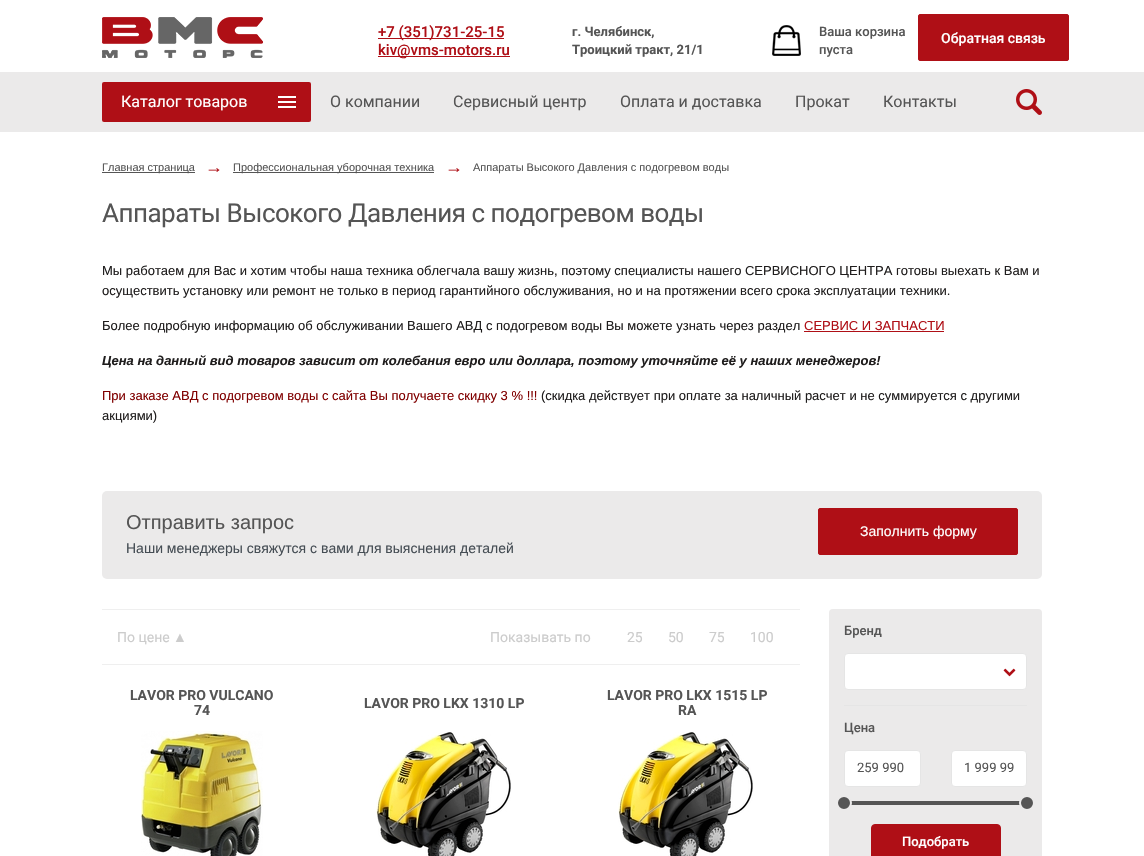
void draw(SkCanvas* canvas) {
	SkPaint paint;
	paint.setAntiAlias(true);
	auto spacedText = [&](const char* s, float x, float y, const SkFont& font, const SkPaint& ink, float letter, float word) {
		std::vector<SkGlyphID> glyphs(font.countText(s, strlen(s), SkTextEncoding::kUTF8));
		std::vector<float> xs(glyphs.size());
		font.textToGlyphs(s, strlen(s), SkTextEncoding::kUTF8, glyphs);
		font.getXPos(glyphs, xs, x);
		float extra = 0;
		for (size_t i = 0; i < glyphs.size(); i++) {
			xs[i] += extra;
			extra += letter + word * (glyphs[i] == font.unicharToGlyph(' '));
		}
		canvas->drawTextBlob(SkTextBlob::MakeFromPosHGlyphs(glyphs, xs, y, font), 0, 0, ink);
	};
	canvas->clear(0xffffffff);
	canvas->drawImageRect(SkImages::DeferredFromEncodedData(SkData::MakeFromFileName("img1.png")), SkRect::MakeXYWH(102, 17, 161, 41), SkSamplingOptions());
	paint.setColor(0xffaf0f16);
	canvas->drawRect(SkRect::MakeXYWH(378, 38, 126, 1), paint);
	SkFont f1(fontMgr->matchFamilyStyle("Roboto", SkFontStyle(500, SkFontStyle::kNormal_Width, SkFontStyle::kUpright_Slant)), 15);
	f1.setSubpixel(true);
	canvas->drawString("+7 (351)731-25-15", 378, 37, f1, paint);
	canvas->drawRect(SkRect::MakeXYWH(378, 56, 132, 1), paint);
	canvas->drawString("kiv@vms-motors.ru", 378, 55, f1, paint);
	SkFont f2(fontMgr->matchFamilyStyle("Roboto", SkFontStyle::Bold()), 13);
	f2.setSubpixel(true);
	paint.setColor(0xff555555);
	canvas->drawString("г. Челябинск,", 572, 36, f2, paint);
	canvas->drawString("Троицкий тракт, 21/1", 572, 54, f2, paint);
	canvas->drawImageRect(SkImages::DeferredFromEncodedData(SkData::MakeFromFileName("img2.png")), SkRect::MakeXYWH(772, 25, 29, 31), SkSamplingOptions());
	SkFont f3(fontMgr->matchFamilyStyle("Roboto", SkFontStyle(500, SkFontStyle::kNormal_Width, SkFontStyle::kUpright_Slant)), 13);
	f3.setSubpixel(true);
	canvas->drawString("Ваша корзина", 819, 36, f3, paint);
	canvas->drawString("пуста", 819, 54, f3, paint);
	paint.setColor(0xffaf0f16);
	canvas->drawRoundRect(SkRect::MakeXYWH(918.5, 14.5, 150, 46), 1.5, 1.5, paint);
	paint.setStroke(true);
	paint.setStrokeWidth(1);
	canvas->drawRoundRect(SkRect::MakeXYWH(918.5, 14.5, 150, 46), 1.5, 1.5, paint);
	SkFont f4(fontMgr->matchFamilyStyle("Roboto", SkFontStyle(500, SkFontStyle::kNormal_Width, SkFontStyle::kUpright_Slant)), 14);
	f4.setSubpixel(true);
	paint.setStroke(false);
	paint.setColor(0xffffffff);
	canvas->drawString("Обратная связь", 941, 43, f4, paint);
	paint.setColor(0xffebeaea);
	canvas->drawRect(SkRect::MakeXYWH(0, 72, 1144, 60), paint);
	paint.setColor(0xffaf0f16);
	canvas->drawRoundRect(SkRect::MakeXYWH(102, 82, 209, 40), 2, 2, paint);
	SkFont f5(fontMgr->matchFamilyStyle("Roboto", SkFontStyle::Normal()), 16);
	f5.setSubpixel(true);
	paint.setColor(0xffffffff);
	canvas->drawString("Каталог товаров", 121, 107, f5, paint);
	canvas->drawImageRect(SkImages::DeferredFromEncodedData(SkData::MakeFromFileName("img3.png")), SkRect::MakeXYWH(278, 96, 18, 12), SkSamplingOptions());
	paint.setColor(0xff555555);
	canvas->drawString("О компании", 330, 107, f5, paint);
	canvas->drawString("Сервисный центр", 453, 107, f5, paint);
	canvas->drawString("Оплата и доставка", 620, 107, f5, paint);
	canvas->drawString("Прокат", 795, 107, f5, paint);
	canvas->drawString("Контакты", 883, 107, f5, paint);
	canvas->drawImageRect(SkImages::DeferredFromEncodedData(SkData::MakeFromFileName("img4.png")), SkRect::MakeXYWH(1016, 89, 26, 26), SkSamplingOptions());
	canvas->drawRect(SkRect::MakeXYWH(102, 172, 93, 1), paint);
	SkFont f6(fontMgr->matchFamilyStyle("Liberation Sans", SkFontStyle::Normal()), 11);
	f6.setSubpixel(true);
	canvas->drawString("Главная страница", 102, 171, f6, paint);
	SkFont f7(fontMgr->matchFamilyStyle("Liberation Sans", SkFontStyle::Normal()), 18);
	f7.setSubpixel(true);
	paint.setColor(0xffaf0f16);
	canvas->drawString("→", 205, 173, f7, paint);
	paint.setColor(0xff555555);
	canvas->drawRect(SkRect::MakeXYWH(233, 172, 201, 1), paint);
	canvas->drawString("Профессиональная уборочная техника", 233, 171, f6, paint);
	paint.setColor(0xffaf0f16);
	canvas->drawString("→", 445, 173, f7, paint);
	paint.setColor(0xff555555);
	canvas->drawString("Аппараты Высокого Давления с подогревом воды", 473, 171, f6, paint);
	SkFont f8(fontMgr->matchFamilyStyle("Roboto", SkFontStyle::Normal()), 26);
	f8.setSubpixel(true);
	spacedText("Аппараты Высокого Давления с подогревом воды", 102, 222, f8, paint, -0.5, 0);
	SkFont f9(fontMgr->matchFamilyStyle("Liberation Sans", SkFontStyle::Normal()), 13);
	f9.setSubpixel(true);
	paint.setColor(0xff1f1d1d);
	canvas->drawString("Мы работаем для Вас и хотим чтобы наша техника облегчала вашу жизнь, поэтому специалисты нашего СЕРВИСНОГО ЦЕНТРА готовы выехать к Вам и", 102, 275, f9, paint);
	canvas->drawString("осуществить установку или ремонт не только в период гарантийного обслуживания, но и на протяжении всего срока эксплуатации техники.", 102, 295, f9, paint);
	canvas->drawString("Более подробную информацию об обслуживании Вашего АВД с подогревом воды Вы можете узнать через раздел", 102, 330, f9, paint);
	paint.setColor(0xffaf0f16);
	canvas->drawString("СЕРВИС И ЗАПЧАСТИ", 804, 330, f9, paint);
	canvas->drawRect(SkRect::MakeXYWH(804, 331, 140, 1), paint);
	SkFont f10(fontMgr->matchFamilyStyle("Liberation Sans", SkFontStyle::BoldItalic()), 13);
	f10.setSubpixel(true);
	paint.setColor(0xff1f1d1d);
	canvas->drawString("Цена на данный вид товаров зависит от колебания евро или доллара, поэтому уточняйте её у наших менеджеров!", 102, 365, f10, paint);
	paint.setColor(0xff800000);
	canvas->drawString("При заказе АВД с подогревом воды с сайта Вы получаете скидку 3 % !!!", 102, 400, f9, paint);
	paint.setColor(0xff1f1d1d);
	canvas->drawString("(скидка действует при оплате за наличный расчет и не суммируется с другими", 541, 400, f9, paint);
	canvas->drawString("акциями)", 102, 420, f9, paint);
	paint.setColor(0xffebeaea);
	canvas->drawRoundRect(SkRect::MakeXYWH(102, 491, 940, 88), 5, 5, paint);
	SkFont f11(fontMgr->matchFamilyStyle("Liberation Sans", SkFontStyle::Normal()), 20);
	f11.setSubpixel(true);
	paint.setColor(0xff555555);
	canvas->drawString("Отправить запрос", 126, 529, f11, paint);
	SkFont f12(fontMgr->matchFamilyStyle("Liberation Sans", SkFontStyle::Normal()), 14);
	f12.setSubpixel(true);
	paint.setColor(0xff454d54);
	canvas->drawString("Наши менеджеры свяжутся с вами для выяснения деталей", 126, 553, f12, paint);
	paint.setColor(0xffaf0f16);
	canvas->drawRoundRect(SkRect::MakeXYWH(818.5, 508.5, 199, 46), 1.5, 1.5, paint);
	paint.setStroke(true);
	canvas->drawRoundRect(SkRect::MakeXYWH(818.5, 508.5, 199, 46), 1.5, 1.5, paint);
	paint.setStroke(false);
	paint.setColor(0xffffffff);
	canvas->drawString("Заполнить форму", 860, 536, f12, paint);
	paint.setColor(0xffefefef);
	canvas->drawRect(SkRect::MakeXYWH(102, 609, 698, 1), paint);
	canvas->drawRect(SkRect::MakeXYWH(102, 664, 698, 1), paint);
	SkFont f13(fontMgr->matchFamilyStyle("Roboto", SkFontStyle::Normal()), 14);
	f13.setSubpixel(true);
	paint.setColor(0xffcccccc);
	canvas->drawString("По цене", 117, 642, f13, paint);
	canvas->drawString("▲", 173, 642, f12, paint);
	canvas->drawString("Показывать по", 490, 642, f13, paint);
	canvas->drawString("25", 627, 642, f13, paint);
	canvas->drawString("50", 668, 642, f13, paint);
	canvas->drawString("75", 709, 642, f13, paint);
	canvas->drawString("100", 750, 642, f13, paint);
	SkFont f14(fontMgr->matchFamilyStyle("Roboto", SkFontStyle::Bold()), 14);
	f14.setSubpixel(true);
	paint.setColor(0xff555555);
	canvas->drawString("LAVOR PRO VULCANO", 130, 700, f14, paint);
	canvas->drawString("74", 194, 715, f14, paint);
	canvas->drawImageRect(SkImages::DeferredFromEncodedData(SkData::MakeFromFileName("img5.png")), SkRect::MakeXYWH(141, 731, 122, 125), SkSamplingOptions());
	canvas->drawString("LAVOR PRO LKX 1310 LP", 364, 708, f14, paint);
	canvas->drawImageRect(SkImages::DeferredFromEncodedData(SkData::MakeFromFileName("img6.png")), SkRect::MakeXYWH(376, 732, 135, 124), SkSamplingOptions());
	canvas->drawString("LAVOR PRO LKX 1515 LP", 607, 700, f14, paint);
	canvas->drawString("RA", 678, 715, f14, paint);
	canvas->drawImageRect(SkImages::DeferredFromEncodedData(SkData::MakeFromFileName("img6.png")), SkRect::MakeXYWH(618, 732, 135, 124), SkSamplingOptions());
	paint.setColor(0xffebeaea);
	canvas->drawRoundRect(SkRect::MakeXYWH(829, 609, 213, 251), 4, 4, paint);
	paint.setColor(0xffe5e5e5);
	canvas->drawRect(SkRect::MakeXYWH(844, 705, 183, 1), paint);
	paint.setColor(0xff555555);
	canvas->drawString("Бренд", 844, 635, f3, paint);
	paint.setColor(0xffffffff);
	canvas->drawRoundRect(SkRect::MakeXYWH(844.5, 653.5, 182, 36), 3.5, 3.5, paint);
	paint.setStroke(true);
	paint.setColor(0xffe5e5e5);
	canvas->drawRoundRect(SkRect::MakeXYWH(844.5, 653.5, 182, 36), 3.5, 3.5, paint);
	canvas->drawImageRect(SkImages::DeferredFromEncodedData(SkData::MakeFromFileName("img7.png")), SkRect::MakeXYWH(1003, 668, 13, 9), SkSamplingOptions());
	paint.setStroke(false);
	paint.setColor(0xff555555);
	canvas->drawString("Цена", 844, 732, f3, paint);
	paint.setColor(0xffffffff);
	canvas->drawRoundRect(SkRect::MakeXYWH(844.5, 750.5, 76, 36), 3.5, 3.5, paint);
	paint.setStroke(true);
	paint.setColor(0xffe5e5e5);
	canvas->drawRoundRect(SkRect::MakeXYWH(844.5, 750.5, 76, 36), 3.5, 3.5, paint);
	SkFont f15(fontMgr->matchFamilyStyle("Roboto", SkFontStyle::Normal()), 13);
	f15.setSubpixel(true);
	paint.setStroke(false);
	paint.setColor(0xff555555);
	canvas->drawString("259 990", 857, 772, f15, paint);
	paint.setColor(0xffffffff);
	canvas->drawRoundRect(SkRect::MakeXYWH(951.5, 750.5, 75, 36), 3.5, 3.5, paint);
	paint.setStroke(true);
	paint.setColor(0xffe5e5e5);
	canvas->drawRoundRect(SkRect::MakeXYWH(951.5, 750.5, 75, 36), 3.5, 3.5, paint);
	paint.setStroke(false);
	paint.setColor(0xff555555);
	canvas->drawString("1 999 99", 964, 772, f15, paint);
	canvas->drawRect(SkRect::MakeXYWH(844, 801, 183, 4), paint);
	canvas->drawCircle(844, 803, 7, paint);
	paint.setStroke(true);
	paint.setStrokeWidth(2);
	paint.setColor(0xffebeaea);
	canvas->drawCircle(844, 803, 7, paint);
	paint.setStroke(false);
	paint.setColor(0xff555555);
	canvas->drawCircle(1027, 803, 7, paint);
	paint.setStroke(true);
	paint.setColor(0xffebeaea);
	canvas->drawCircle(1027, 803, 7, paint);
	paint.setStroke(false);
	paint.setColor(0xffaf0f16);
	canvas->drawRoundRect(SkRect::MakeXYWH(871.5, 824.5, 129, 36), 3.5, 3.5, paint);
	paint.setStroke(true);
	paint.setStrokeWidth(1);
	canvas->drawRoundRect(SkRect::MakeXYWH(871.5, 824.5, 129, 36), 3.5, 3.5, paint);
	paint.setStroke(false);
	paint.setColor(0xffffffff);
	canvas->drawString("Подобрать", 902, 846, f3, paint);
}
